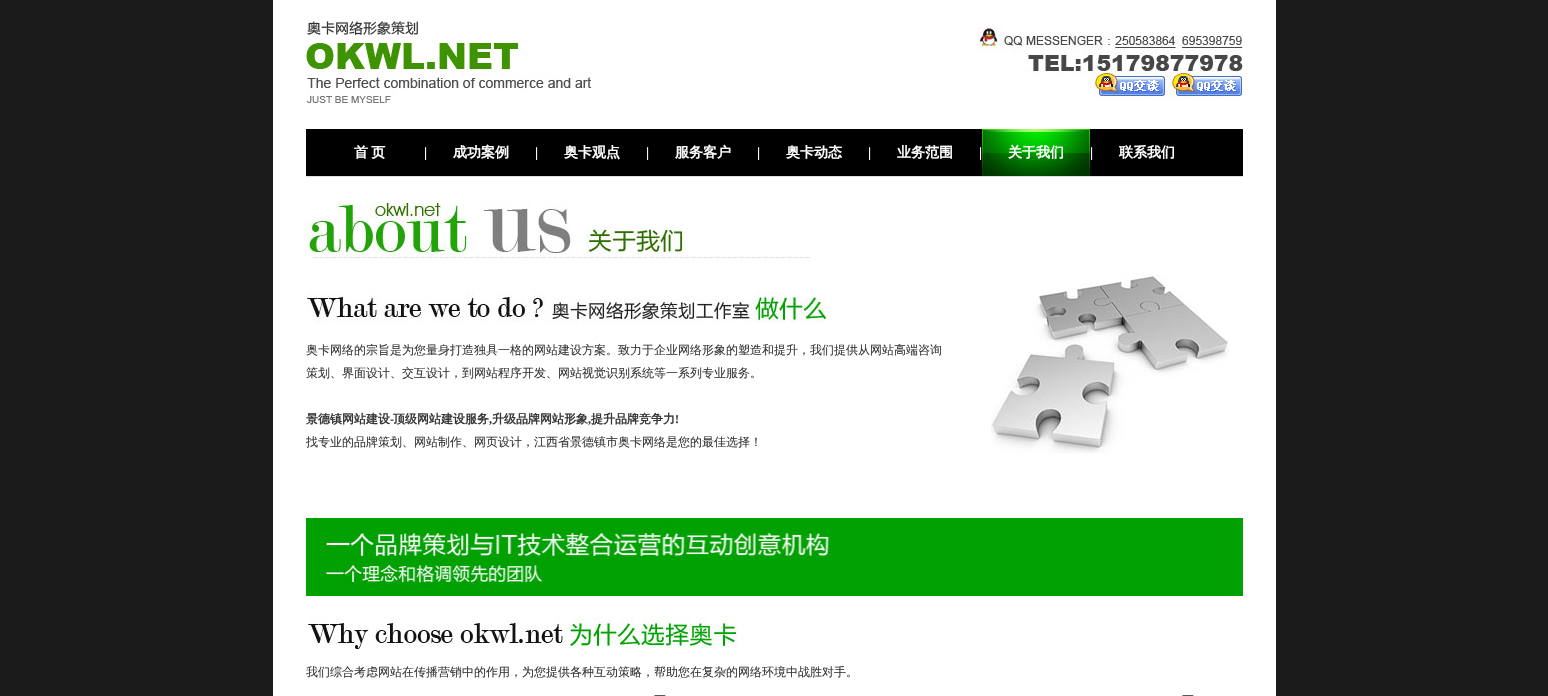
void draw(SkCanvas* canvas) {
	SkPaint paint;
	paint.setAntiAlias(true);
	auto spacedText = [&](const char* s, float x, float y, const SkFont& font, const SkPaint& ink, float letter, float word) {
		std::vector<SkGlyphID> glyphs(font.countText(s, strlen(s), SkTextEncoding::kUTF8));
		std::vector<float> xs(glyphs.size());
		font.textToGlyphs(s, strlen(s), SkTextEncoding::kUTF8, glyphs);
		font.getXPos(glyphs, xs, x);
		float extra = 0;
		for (size_t i = 0; i < glyphs.size(); i++) {
			xs[i] += extra;
			extra += letter + word * (glyphs[i] == font.unicharToGlyph(' '));
		}
		canvas->drawTextBlob(SkTextBlob::MakeFromPosHGlyphs(glyphs, xs, y, font), 0, 0, ink);
	};
	canvas->clear(0xff1b1b1b);
	paint.setColor(0xffffffff);
	canvas->drawRect(SkRect::MakeXYWH(273, 0, 1003, 696), paint);
	canvas->drawImageRect(SkImages::DeferredFromEncodedData(SkData::MakeFromFileName("img1.png")), SkRect::MakeXYWH(306, 19, 286, 86), SkSamplingOptions());
	canvas->drawImageRect(SkImages::DeferredFromEncodedData(SkData::MakeFromFileName("img2.png")), SkRect::MakeXYWH(978, 27, 265, 72), SkSamplingOptions());
	paint.setColor(0xff000000);
	canvas->drawRect(SkRect::MakeXYWH(306, 129, 937, 47), paint);
	SkFont f1(fontMgr->matchFamilyStyle("WenQuanYi Zen Hei", SkFontStyle::Bold()), 14);
	f1.setSubpixel(true);
	paint.setColor(0xffffffff);
	spacedText("首 页", 354, 157, f1, paint, 0, -1);
	SkFont f2(fontMgr->matchFamilyStyle("Liberation Serif", SkFontStyle::Bold()), 14);
	f2.setSubpixel(true);
	canvas->drawString("|", 424, 157, f2, paint);
	canvas->drawString("成功案例", 453, 157, f1, paint);
	canvas->drawString("|", 535, 157, f2, paint);
	canvas->drawString("奥卡观点", 564, 157, f1, paint);
	canvas->drawString("|", 646, 157, f2, paint);
	canvas->drawString("服务客户", 675, 157, f1, paint);
	canvas->drawString("|", 757, 157, f2, paint);
	canvas->drawString("奥卡动态", 786, 157, f1, paint);
	canvas->drawString("|", 868, 157, f2, paint);
	canvas->drawString("业务范围", 897, 157, f1, paint);
	canvas->drawString("|", 979, 157, f2, paint);
	canvas->drawImageRect(SkImages::DeferredFromEncodedData(SkData::MakeFromFileName("img3.png")), SkRect::MakeXYWH(982, 129, 108, 47), SkSamplingOptions());
	canvas->drawString("关于我们", 1008, 157, f1, paint);
	canvas->drawString("|", 1090, 157, f2, paint);
	canvas->drawString("联系我们", 1119, 157, f1, paint);
	paint.setColor(0xffdfdfdf);
	canvas->drawRect(SkRect::MakeXYWH(306, 176, 937, 1), paint);
	canvas->drawImageRect(SkImages::DeferredFromEncodedData(SkData::MakeFromFileName("img4.png")), SkRect::MakeXYWH(306, 203, 504, 55), SkSamplingOptions());
	canvas->drawImageRect(SkImages::DeferredFromEncodedData(SkData::MakeFromFileName("img5.png")), SkRect::MakeXYWH(306, 291, 520, 32), SkSamplingOptions());
	SkFont f3(fontMgr->matchFamilyStyle("WenQuanYi Zen Hei", SkFontStyle(500, SkFontStyle::kNormal_Width, SkFontStyle::kUpright_Slant)), 12);
	f3.setSubpixel(true);
	paint.setColor(0xff383838);
	canvas->drawString("奥卡网络的宗旨是为您量身打造独具一格的网站建设方案。致力于企业网络形象的塑造和提升，我们提供从网站高端咨询", 306, 354, f3, paint);
	canvas->drawString("策划、界面设计、交互设计，到网站程序开发、网站视觉识别系统等一系列专业服务。", 306, 377, f3, paint);
	SkFont f4(fontMgr->matchFamilyStyle("WenQuanYi Zen Hei", SkFontStyle::Bold()), 12);
	f4.setSubpixel(true);
	canvas->drawString("景德镇网站建设", 306, 423, f4, paint);
	SkFont f5(fontMgr->matchFamilyStyle("Liberation Serif", SkFontStyle::Bold()), 12);
	f5.setSubpixel(true);
	canvas->drawString("-", 390, 423, f5, paint);
	canvas->drawString("顶级网站建设服务", 393, 423, f4, paint);
	canvas->drawString("升级品牌网站形象", 492, 423, f4, paint);
	canvas->drawString(",", 588, 423, f5, paint);
	canvas->drawString("提升品牌竞争力", 591, 423, f4, paint);
	canvas->drawString("!", 675, 423, f5, paint);
	canvas->drawString(",", 489, 423, f5, paint);
	canvas->save();
	canvas->clipRect(SkRect::MakeXYWH(306, 177, 937, 341));
	canvas->drawString("找专业的品牌策划、网站制作、网页设计，江西省景德镇市奥卡网络是您的最佳选择！", 306, 446, f3, paint);
	canvas->restore();
	canvas->drawImageRect(SkImages::DeferredFromEncodedData(SkData::MakeFromFileName("img6.png")), SkRect::MakeXYWH(991, 275, 239, 179), SkSamplingOptions());
	canvas->drawImageRect(SkImages::DeferredFromEncodedData(SkData::MakeFromFileName("img7.png")), SkRect::MakeXYWH(306, 518, 937, 78), SkSamplingOptions());
	canvas->drawImageRect(SkImages::DeferredFromEncodedData(SkData::MakeFromFileName("img8.png")), SkRect::MakeXYWH(308, 617, 430, 32), SkSamplingOptions());
	canvas->drawString("我们综合考虑网站在传播营销中的作用，为您提供各种互动策略，帮助您在复杂的网络环境中战胜对手。", 306, 676, f3, paint);
	canvas->drawString("一", 654, 700, f3, paint);
	canvas->drawString("一", 1182, 700, f3, paint);
}
